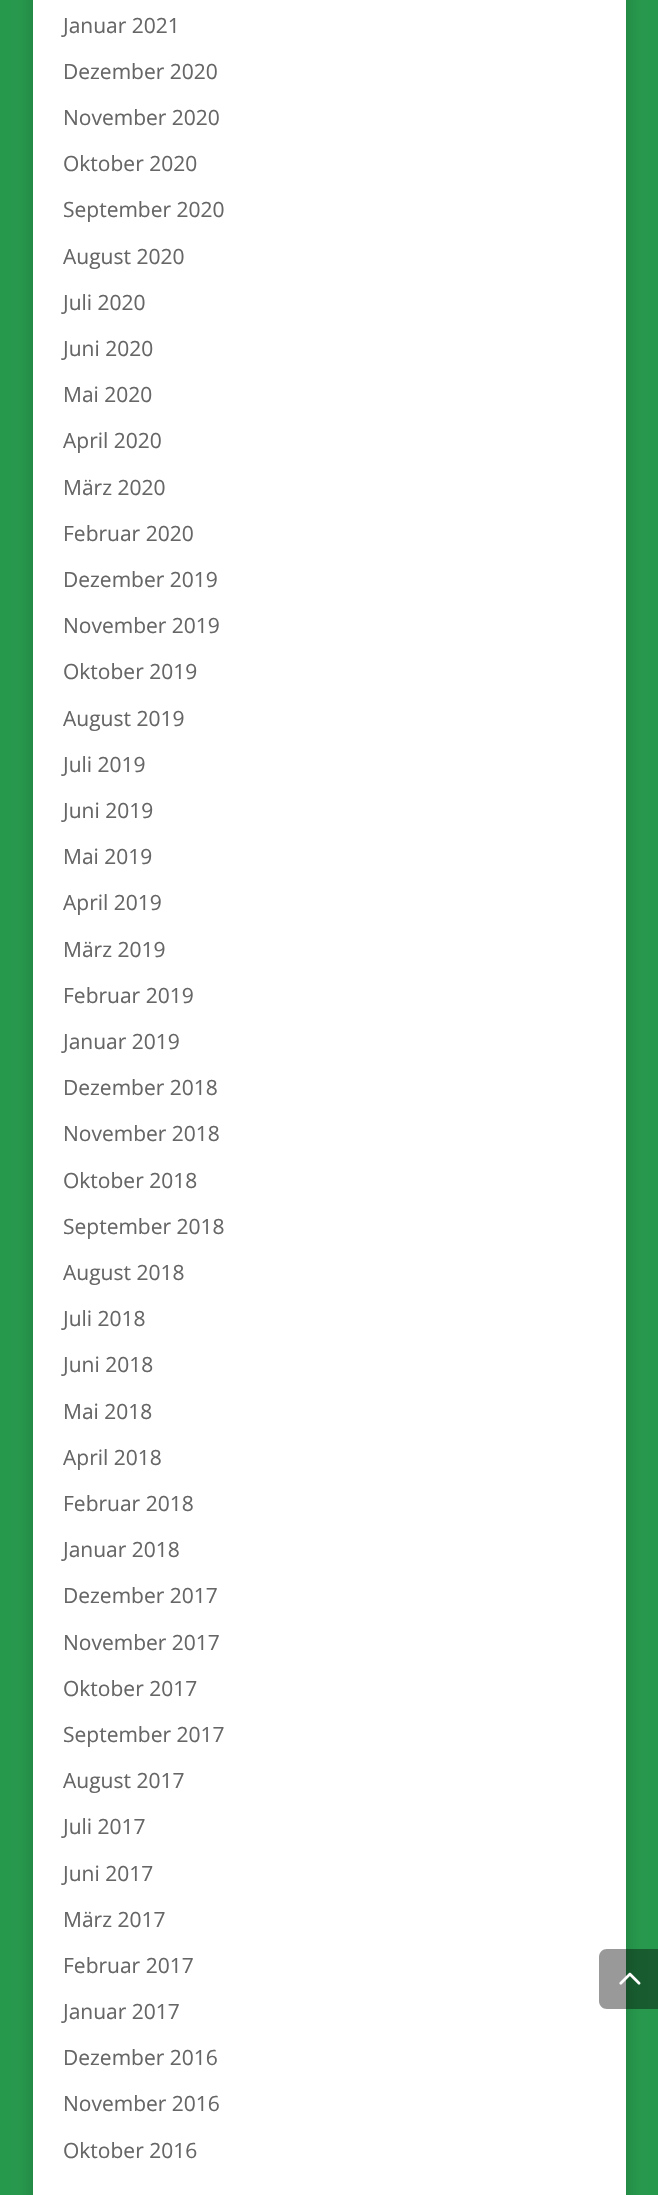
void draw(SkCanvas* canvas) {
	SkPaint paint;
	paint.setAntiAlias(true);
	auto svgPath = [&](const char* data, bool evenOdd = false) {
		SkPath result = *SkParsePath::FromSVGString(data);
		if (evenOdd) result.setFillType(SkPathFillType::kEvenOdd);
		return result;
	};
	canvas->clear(0xff27994d);
	paint.setColor(0x33000000);
	paint.setMaskFilter(SkMaskFilter::MakeBlur(kNormal_SkBlurStyle, 7.5));
	canvas->drawRect(SkRect::MakeXYWH(33, -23, 593, 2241), paint);
	paint.setMaskFilter(nullptr);
	paint.setColor(0xffffffff);
	canvas->drawRect(SkRect::MakeXYWH(33, 0, 593, 2195), paint);
	SkFont f1(fontMgr->matchFamilyStyle("Open Sans", SkFontStyle::Normal()), 21);
	f1.setSubpixel(true);
	paint.setColor(0xff666666);
	canvas->drawString("Januar 2021", 63, 33, f1, paint);
	canvas->drawString("Dezember 2020", 63, 79, f1, paint);
	canvas->drawString("November 2020", 63, 125, f1, paint);
	canvas->drawString("Oktober 2020", 63, 171, f1, paint);
	canvas->drawString("September 2020", 63, 217, f1, paint);
	canvas->drawString("August 2020", 63, 264, f1, paint);
	canvas->drawString("Juli 2020", 63, 310, f1, paint);
	canvas->drawString("Juni 2020", 63, 356, f1, paint);
	canvas->drawString("Mai 2020", 63, 402, f1, paint);
	canvas->drawString("April 2020", 63, 448, f1, paint);
	canvas->drawString("März 2020", 63, 495, f1, paint);
	canvas->drawString("Februar 2020", 63, 541, f1, paint);
	canvas->drawString("Dezember 2019", 63, 587, f1, paint);
	canvas->drawString("November 2019", 63, 633, f1, paint);
	canvas->drawString("Oktober 2019", 63, 679, f1, paint);
	canvas->drawString("August 2019", 63, 726, f1, paint);
	canvas->drawString("Juli 2019", 63, 772, f1, paint);
	canvas->drawString("Juni 2019", 63, 818, f1, paint);
	canvas->drawString("Mai 2019", 63, 864, f1, paint);
	canvas->drawString("April 2019", 63, 910, f1, paint);
	canvas->drawString("März 2019", 63, 957, f1, paint);
	canvas->drawString("Februar 2019", 63, 1003, f1, paint);
	canvas->drawString("Januar 2019", 63, 1049, f1, paint);
	canvas->drawString("Dezember 2018", 63, 1095, f1, paint);
	canvas->drawString("November 2018", 63, 1141, f1, paint);
	canvas->drawString("Oktober 2018", 63, 1188, f1, paint);
	canvas->drawString("September 2018", 63, 1234, f1, paint);
	canvas->drawString("August 2018", 63, 1280, f1, paint);
	canvas->drawString("Juli 2018", 63, 1326, f1, paint);
	canvas->drawString("Juni 2018", 63, 1372, f1, paint);
	canvas->drawString("Mai 2018", 63, 1419, f1, paint);
	canvas->drawString("April 2018", 63, 1465, f1, paint);
	canvas->drawString("Februar 2018", 63, 1511, f1, paint);
	canvas->drawString("Januar 2018", 63, 1557, f1, paint);
	canvas->drawString("Dezember 2017", 63, 1603, f1, paint);
	canvas->drawString("November 2017", 63, 1650, f1, paint);
	canvas->drawString("Oktober 2017", 63, 1696, f1, paint);
	canvas->drawString("September 2017", 63, 1742, f1, paint);
	canvas->drawString("August 2017", 63, 1788, f1, paint);
	canvas->drawString("Juli 2017", 63, 1834, f1, paint);
	canvas->drawString("Juni 2017", 63, 1881, f1, paint);
	canvas->drawString("März 2017", 63, 1927, f1, paint);
	canvas->drawString("Februar 2017", 63, 1973, f1, paint);
	canvas->drawString("Januar 2017", 63, 2019, f1, paint);
	canvas->drawString("Dezember 2016", 63, 2065, f1, paint);
	canvas->drawString("November 2016", 63, 2111, f1, paint);
	canvas->drawString("Oktober 2016", 63, 2158, f1, paint);
	paint.setColor(0x66000000);
	canvas->drawPath(svgPath("M607 1949H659V2009H607C602.5 2009 599 2005.5 599 2001V1957C599 1952.5 602.5 1949 607 1949Z"), paint);
	canvas->drawImageRect(SkImages::DeferredFromEncodedData(SkData::MakeFromFileName("img1.png")), SkRect::MakeXYWH(619, 1972, 22, 13), SkSamplingOptions());
}
